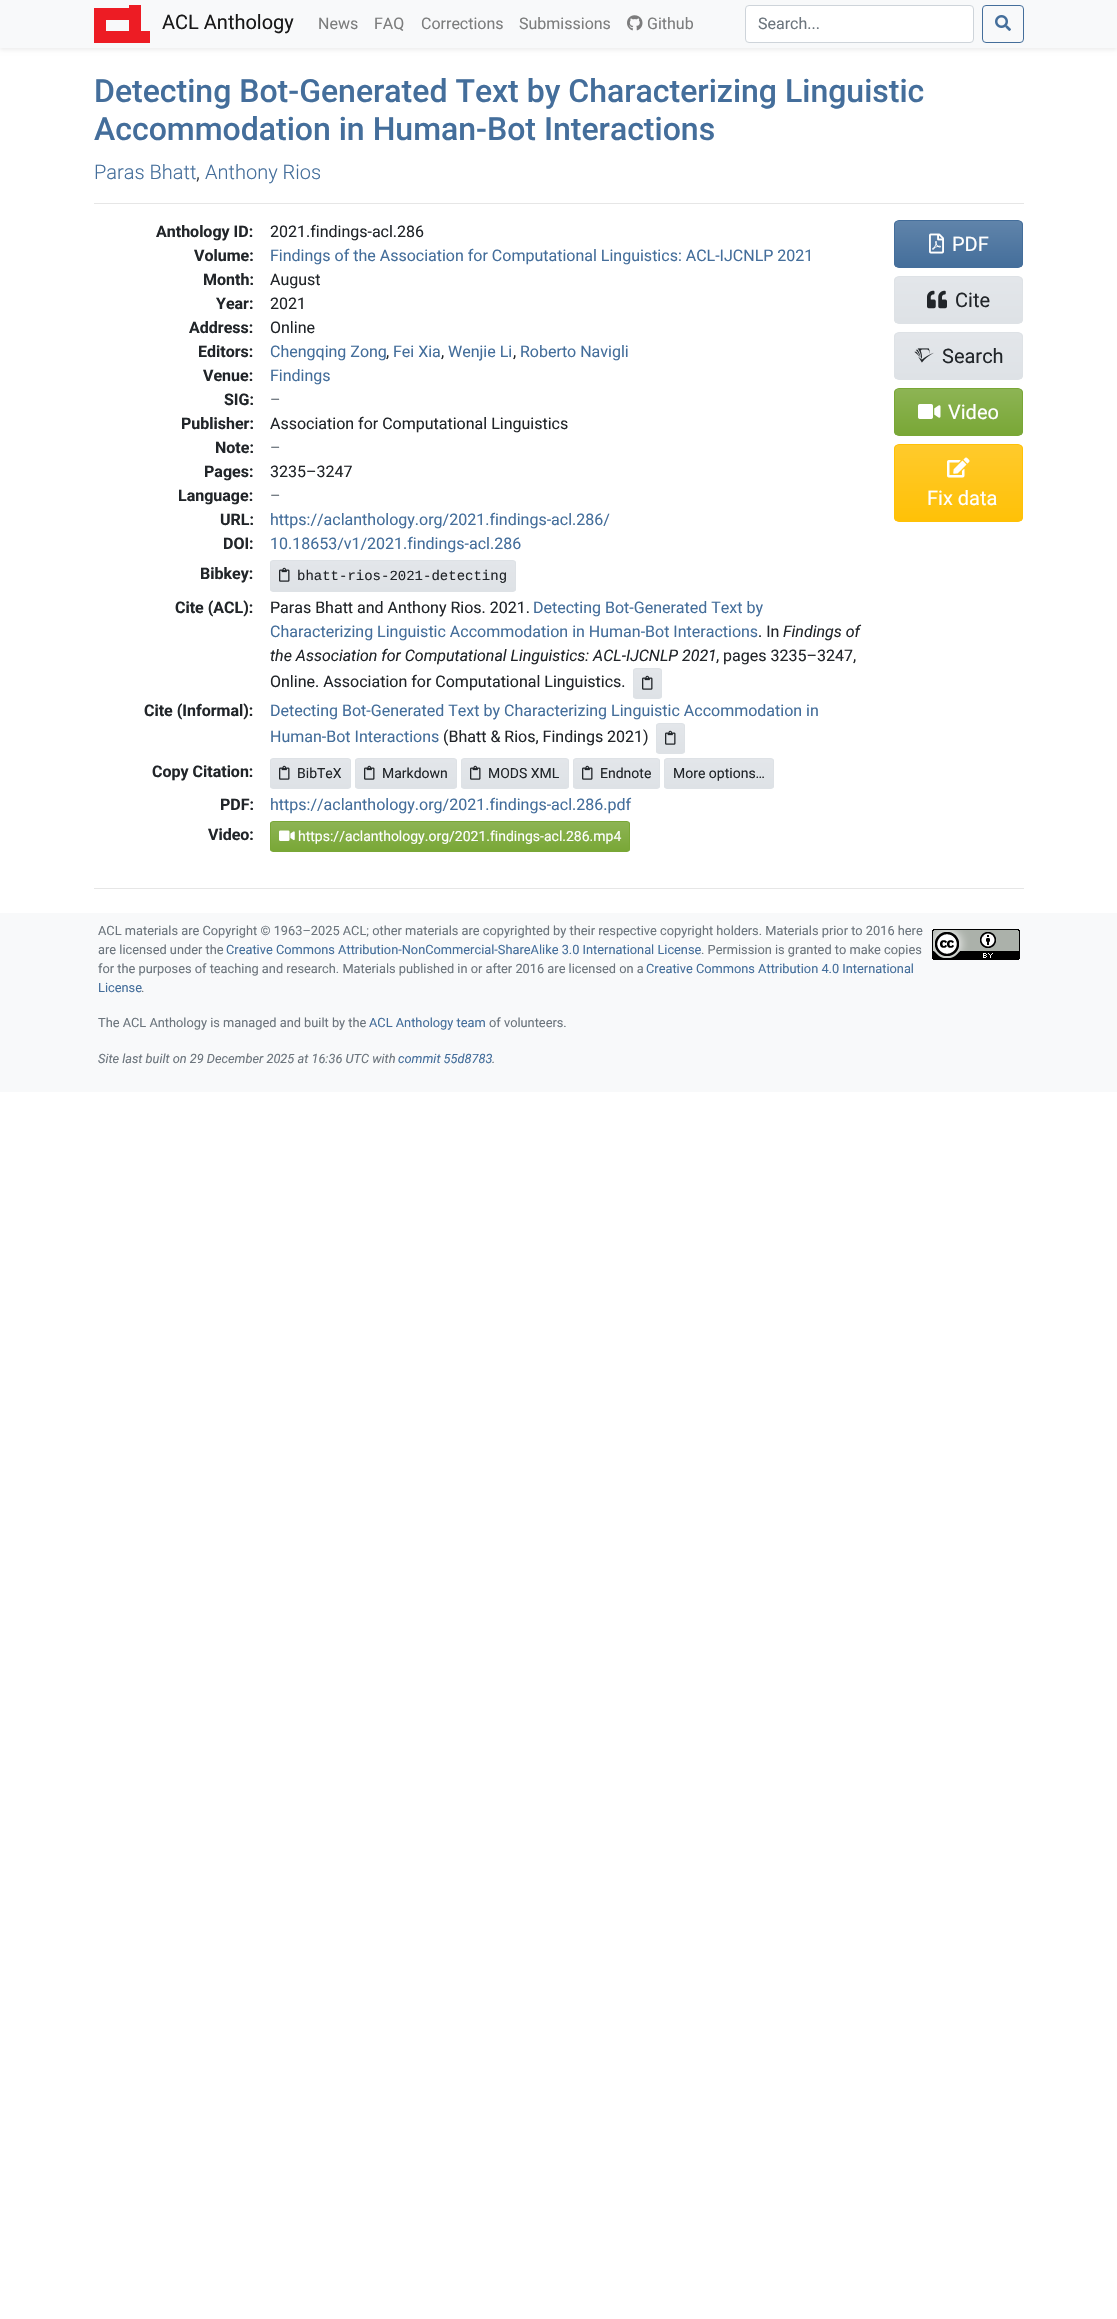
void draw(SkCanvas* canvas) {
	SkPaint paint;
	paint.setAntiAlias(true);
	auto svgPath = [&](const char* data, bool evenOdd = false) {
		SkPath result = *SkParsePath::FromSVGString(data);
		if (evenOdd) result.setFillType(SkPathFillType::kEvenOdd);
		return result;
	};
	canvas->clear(0xffffffff);
	paint.setColor(0x12000000);
	paint.setMaskFilter(SkMaskFilter::MakeBlur(kNormal_SkBlurStyle, 2));
	canvas->drawRect(SkRect::MakeXYWH(0, 2, 1117, 48), paint);
	paint.setMaskFilter(nullptr);
	paint.setColor(0xfff8f9fa);
	canvas->drawRect(SkRect::MakeXYWH(0, 0, 1117, 48), paint);
	paint.setColor(0xffed1c24);
	canvas->drawPath(svgPath("M129 5V8H94V43H150V31H141V5ZM106 20H129V31H106Z", true), paint);
	SkFont f1(fontMgr->matchFamilyStyle("Roboto", SkFontStyle::Normal()), 20);
	f1.setSubpixel(true);
	paint.setColor(0xff191919);
	canvas->drawString("ACL Anthology", 162, 29, f1, paint);
	SkFont f2(fontMgr->matchFamilyStyle("Roboto", SkFontStyle::Normal()), 16);
	f2.setSubpixel(true);
	paint.setColor(0xff7c7d7d);
	canvas->drawString("News", 318, 29, f2, paint);
	canvas->drawString("FAQ", 374, 29, f2, paint);
	canvas->drawString("Corrections", 421, 29, f2, paint);
	canvas->drawString("Submissions", 519, 29, f2, paint);
	canvas->drawImageRect(SkImages::DeferredFromEncodedData(SkData::MakeFromFileName("img1.png")), SkRect::MakeXYWH(627, 15, 16, 16), SkSamplingOptions());
	canvas->drawString("Github", 647, 29, f2, paint);
	paint.setColor(0xffffffff);
	canvas->drawRoundRect(SkRect::MakeXYWH(745.5, 5.5, 228, 37), 3.5, 3.5, paint);
	paint.setStroke(true);
	paint.setStrokeWidth(1);
	paint.setColor(0xffced4da);
	canvas->drawRoundRect(SkRect::MakeXYWH(745.5, 5.5, 228, 37), 3.5, 3.5, paint);
	paint.setStroke(false);
	paint.setColor(0xff6c757d);
	canvas->drawString("Search...", 758, 29, f2, paint);
	paint.setStroke(true);
	paint.setColor(0xff446e9b);
	canvas->drawRoundRect(SkRect::MakeXYWH(982.5, 5.5, 41, 37), 3.5, 3.5, paint);
	canvas->drawImageRect(SkImages::DeferredFromEncodedData(SkData::MakeFromFileName("img2.png")), SkRect::MakeXYWH(995, 15, 16, 16), SkSamplingOptions());
	SkFont f3(fontMgr->matchFamilyStyle("Roboto", SkFontStyle(500, SkFontStyle::kNormal_Width, SkFontStyle::kUpright_Slant)), 32);
	f3.setSubpixel(true);
	paint.setStroke(false);
	canvas->drawString("Detecting Bot-Generated Text by Characterizing Linguistic", 94, 102, f3, paint);
	canvas->drawString("Accommodation in Human-Bot Interactions", 94, 140, f3, paint);
	SkFont f4(fontMgr->matchFamilyStyle("Roboto", SkFontStyle(300, SkFontStyle::kNormal_Width, SkFontStyle::kUpright_Slant)), 20);
	f4.setSubpixel(true);
	canvas->drawString("Paras Bhatt", 94, 179, f4, paint);
	paint.setColor(0xff212529);
	canvas->drawString(",", 196, 179, f4, paint);
	paint.setColor(0xff446e9b);
	canvas->drawString("Anthony Rios", 205, 179, f4, paint);
	paint.setColor(0xffe6e6e6);
	canvas->drawRect(SkRect::MakeXYWH(94, 203, 930, 1), paint);
	SkFont f5(fontMgr->matchFamilyStyle("Roboto", SkFontStyle::Bold()), 16);
	f5.setSubpixel(true);
	paint.setColor(0xff212529);
	canvas->drawString("Anthology ID:", 156, 237, f5, paint);
	canvas->drawString("2021.findings-acl.286", 270, 237, f2, paint);
	canvas->drawString("Volume:", 194, 261, f5, paint);
	paint.setColor(0xff446e9b);
	canvas->drawString("Findings of the Association for Computational Linguistics: ACL-IJCNLP 2021", 270, 261, f2, paint);
	paint.setColor(0xff212529);
	canvas->drawString("Month:", 203, 285, f5, paint);
	canvas->drawString("August", 270, 285, f2, paint);
	canvas->drawString("Year:", 216, 309, f5, paint);
	canvas->drawString("2021", 270, 309, f2, paint);
	canvas->drawString("Address:", 189, 333, f5, paint);
	canvas->drawString("Online", 270, 333, f2, paint);
	canvas->drawString("Editors:", 198, 357, f5, paint);
	paint.setColor(0xff446e9b);
	canvas->drawString("Chengqing Zong", 270, 357, f2, paint);
	paint.setColor(0xff212529);
	canvas->drawString(",", 386, 357, f2, paint);
	paint.setColor(0xff446e9b);
	canvas->drawString("Fei Xia", 393, 357, f2, paint);
	paint.setColor(0xff212529);
	canvas->drawString(",", 441, 357, f2, paint);
	paint.setColor(0xff446e9b);
	canvas->drawString("Wenjie Li", 448, 357, f2, paint);
	paint.setColor(0xff212529);
	canvas->drawString(",", 513, 357, f2, paint);
	paint.setColor(0xff446e9b);
	canvas->drawString("Roberto Navigli", 520, 357, f2, paint);
	paint.setColor(0xff212529);
	canvas->drawString("Venue:", 203, 381, f5, paint);
	paint.setColor(0xff446e9b);
	canvas->drawString("Findings", 270, 381, f2, paint);
	paint.setColor(0xff212529);
	canvas->drawString("SIG:", 224, 405, f5, paint);
	paint.setColor(0xff6c757d);
	canvas->drawString("–", 270, 405, f2, paint);
	paint.setColor(0xff212529);
	canvas->drawString("Publisher:", 181, 429, f5, paint);
	canvas->drawString("Association for Computational Linguistics", 270, 429, f2, paint);
	canvas->drawString("Note:", 215, 453, f5, paint);
	paint.setColor(0xff6c757d);
	canvas->drawString("–", 270, 453, f2, paint);
	paint.setColor(0xff212529);
	canvas->drawString("Pages:", 204, 477, f5, paint);
	canvas->drawString("3235–3247", 270, 477, f2, paint);
	canvas->drawString("Language:", 178, 501, f5, paint);
	paint.setColor(0xff6c757d);
	canvas->drawString("–", 270, 501, f2, paint);
	paint.setColor(0xff212529);
	canvas->drawString("URL:", 220, 525, f5, paint);
	paint.setColor(0xff446e9b);
	canvas->drawString("https://aclanthology.org/2021.findings-acl.286/", 270, 525, f2, paint);
	paint.setColor(0xff212529);
	canvas->drawString("DOI:", 223, 549, f5, paint);
	paint.setColor(0xff446e9b);
	canvas->drawString("10.18653/v1/2021.findings-acl.286", 270, 549, f2, paint);
	paint.setColor(0xff212529);
	canvas->drawString("Bibkey:", 200, 579, f5, paint);
	canvas->save();
	canvas->clipPath(svgPath("M273 560H513C514.5 560 516 561.5 516 563V589C516 590.5 514.5 592 513 592H273C271.5 592 270 590.5 270 589V563C270 561.5 271.5 560 273 560Z"), true);
	{
		const SkColor colors[] = {0xffe3e6ea, 0xffdee2e6};
		const float stops[] = {0, 1};
		const SkPoint ends[] = {{393, 561}, {393, 591}};
		paint.setShader(SkGradientShader::MakeLinear(ends, colors, stops, 2, SkTileMode::kClamp));
		paint.setAlpha(255);
	}
	canvas->drawRect(SkRect::MakeXYWH(270, 561, 246, 30), paint);
	canvas->restore();
	paint.setStroke(true);
	paint.setShader(nullptr);
	paint.setColor(0xffdee2e6);
	canvas->drawRoundRect(SkRect::MakeXYWH(270.5, 560.5, 245, 31), 2.5, 2.5, paint);
	canvas->drawImageRect(SkImages::DeferredFromEncodedData(SkData::MakeFromFileName("img3.png")), SkRect::MakeXYWH(279, 567, 11, 15), SkSamplingOptions());
	SkFont f6(fontMgr->matchFamilyStyle("Liberation Mono", SkFontStyle::Normal()), 14);
	f6.setSubpixel(true);
	paint.setStroke(false);
	paint.setColor(0xff212529);
	canvas->drawString("bhatt-rios-2021-detecting", 297, 580, f6, paint);
	canvas->drawString("Cite (ACL):", 175, 613, f5, paint);
	canvas->drawString("Paras Bhatt and Anthony Rios. 2021.", 270, 613, f2, paint);
	paint.setColor(0xff446e9b);
	canvas->drawString("Detecting Bot-Generated Text by", 533, 613, f2, paint);
	canvas->drawString("Characterizing Linguistic Accommodation in Human-Bot Interactions", 270, 637, f2, paint);
	paint.setColor(0xff212529);
	canvas->drawString(". In", 758, 637, f2, paint);
	SkFont f7(fontMgr->matchFamilyStyle("Roboto", SkFontStyle::Italic()), 16);
	f7.setSubpixel(true);
	canvas->drawString("Findings of", 783, 637, f7, paint);
	canvas->drawString("the Association for Computational Linguistics: ACL-IJCNLP 2021", 270, 661, f7, paint);
	canvas->drawString(", pages 3235–3247,", 716, 661, f2, paint);
	canvas->drawString("Online. Association for Computational Linguistics.", 270, 687, f2, paint);
	canvas->save();
	canvas->clipPath(svgPath("M636 668H659C660.5 668 662 669.5 662 671V696C662 697.5 660.5 699 659 699H636C634.5 699 633 697.5 633 696V671C633 669.5 634.5 668 636 668Z"), true);
	{
		const SkColor colors[] = {0xffe3e6ea, 0xffdee2e6};
		const float stops[] = {0, 1};
		const SkPoint ends[] = {{648, 669}, {648, 698}};
		paint.setShader(SkGradientShader::MakeLinear(ends, colors, stops, 2, SkTileMode::kClamp));
		paint.setAlpha(255);
	}
	canvas->drawRect(SkRect::MakeXYWH(633, 669, 29, 29), paint);
	canvas->restore();
	paint.setStroke(true);
	paint.setShader(nullptr);
	paint.setColor(0xffdee2e6);
	canvas->drawRoundRect(SkRect::MakeXYWH(633.5, 668.5, 28, 30), 2.5, 2.5, paint);
	canvas->drawImageRect(SkImages::DeferredFromEncodedData(SkData::MakeFromFileName("img4.png")), SkRect::MakeXYWH(642, 675, 11, 15), SkSamplingOptions());
	paint.setStroke(false);
	paint.setColor(0xff212529);
	canvas->drawString("Cite (Informal):", 144, 716, f5, paint);
	paint.setColor(0xff446e9b);
	canvas->drawString("Detecting Bot-Generated Text by Characterizing Linguistic Accommodation in", 270, 716, f2, paint);
	canvas->drawString("Human-Bot Interactions", 270, 742, f2, paint);
	paint.setColor(0xff212529);
	canvas->drawString("(Bhatt & Rios, Findings 2021)", 443, 742, f2, paint);
	canvas->save();
	canvas->clipPath(svgPath("M659 723H682C683.5 723 685 724.5 685 726V751C685 752.5 683.5 754 682 754H659C657.5 754 656 752.5 656 751V726C656 724.5 657.5 723 659 723Z"), true);
	{
		const SkColor colors[] = {0xffe3e6ea, 0xffdee2e6};
		const float stops[] = {0, 1};
		const SkPoint ends[] = {{671, 724}, {671, 753}};
		paint.setShader(SkGradientShader::MakeLinear(ends, colors, stops, 2, SkTileMode::kClamp));
		paint.setAlpha(255);
	}
	canvas->drawRect(SkRect::MakeXYWH(656, 724, 29, 29), paint);
	canvas->restore();
	paint.setStroke(true);
	paint.setShader(nullptr);
	paint.setColor(0xffdee2e6);
	canvas->drawRoundRect(SkRect::MakeXYWH(656.5, 723.5, 28, 30), 2.5, 2.5, paint);
	canvas->drawImageRect(SkImages::DeferredFromEncodedData(SkData::MakeFromFileName("img4.png")), SkRect::MakeXYWH(665, 730, 11, 15), SkSamplingOptions());
	paint.setStroke(false);
	paint.setColor(0xff212529);
	canvas->drawString("Copy Citation:", 152, 777, f5, paint);
	canvas->save();
	canvas->clipPath(svgPath("M273 758H348C349.5 758 351 759.5 351 761V786C351 787.5 349.5 789 348 789H273C271.5 789 270 787.5 270 786V761C270 759.5 271.5 758 273 758Z"), true);
	{
		const SkColor colors[] = {0xffe3e6ea, 0xffdee2e6};
		const float stops[] = {0, 1};
		const SkPoint ends[] = {{311, 759}, {311, 788}};
		paint.setShader(SkGradientShader::MakeLinear(ends, colors, stops, 2, SkTileMode::kClamp));
		paint.setAlpha(255);
	}
	canvas->drawRect(SkRect::MakeXYWH(270, 759, 81, 29), paint);
	canvas->restore();
	paint.setStroke(true);
	paint.setShader(nullptr);
	paint.setColor(0xffdee2e6);
	canvas->drawRoundRect(SkRect::MakeXYWH(270.5, 758.5, 80, 30), 2.5, 2.5, paint);
	canvas->drawImageRect(SkImages::DeferredFromEncodedData(SkData::MakeFromFileName("img4.png")), SkRect::MakeXYWH(279, 765, 11, 15), SkSamplingOptions());
	SkFont f8(fontMgr->matchFamilyStyle("Roboto", SkFontStyle::Normal()), 14);
	f8.setSubpixel(true);
	paint.setStroke(false);
	paint.setColor(0xff212529);
	canvas->drawString("BibTeX", 297, 778, f8, paint);
	canvas->save();
	canvas->clipPath(svgPath("M358 758H454C455.5 758 457 759.5 457 761V786C457 787.5 455.5 789 454 789H358C356.5 789 355 787.5 355 786V761C355 759.5 356.5 758 358 758Z"), true);
	{
		const SkColor colors[] = {0xffe3e6ea, 0xffdee2e6};
		const float stops[] = {0, 1};
		const SkPoint ends[] = {{406, 759}, {406, 788}};
		paint.setShader(SkGradientShader::MakeLinear(ends, colors, stops, 2, SkTileMode::kClamp));
		paint.setAlpha(255);
	}
	canvas->drawRect(SkRect::MakeXYWH(355, 759, 102, 29), paint);
	canvas->restore();
	paint.setStroke(true);
	paint.setShader(nullptr);
	paint.setColor(0xffdee2e6);
	canvas->drawRoundRect(SkRect::MakeXYWH(355.5, 758.5, 101, 30), 2.5, 2.5, paint);
	canvas->drawImageRect(SkImages::DeferredFromEncodedData(SkData::MakeFromFileName("img4.png")), SkRect::MakeXYWH(364, 765, 11, 15), SkSamplingOptions());
	paint.setStroke(false);
	paint.setColor(0xff212529);
	canvas->drawString("Markdown", 382, 778, f8, paint);
	canvas->save();
	canvas->clipPath(svgPath("M464 758H566C567.5 758 569 759.5 569 761V786C569 787.5 567.5 789 566 789H464C462.5 789 461 787.5 461 786V761C461 759.5 462.5 758 464 758Z"), true);
	{
		const SkColor colors[] = {0xffe3e6ea, 0xffdee2e6};
		const float stops[] = {0, 1};
		const SkPoint ends[] = {{515, 759}, {515, 788}};
		paint.setShader(SkGradientShader::MakeLinear(ends, colors, stops, 2, SkTileMode::kClamp));
		paint.setAlpha(255);
	}
	canvas->drawRect(SkRect::MakeXYWH(461, 759, 108, 29), paint);
	canvas->restore();
	paint.setStroke(true);
	paint.setShader(nullptr);
	paint.setColor(0xffdee2e6);
	canvas->drawRoundRect(SkRect::MakeXYWH(461.5, 758.5, 107, 30), 2.5, 2.5, paint);
	canvas->drawImageRect(SkImages::DeferredFromEncodedData(SkData::MakeFromFileName("img4.png")), SkRect::MakeXYWH(470, 765, 11, 15), SkSamplingOptions());
	paint.setStroke(false);
	paint.setColor(0xff212529);
	canvas->drawString("MODS XML", 488, 778, f8, paint);
	canvas->save();
	canvas->clipPath(svgPath("M576 758H657C658.5 758 660 759.5 660 761V786C660 787.5 658.5 789 657 789H576C574.5 789 573 787.5 573 786V761C573 759.5 574.5 758 576 758Z"), true);
	{
		const SkColor colors[] = {0xffe3e6ea, 0xffdee2e6};
		const float stops[] = {0, 1};
		const SkPoint ends[] = {{617, 759}, {617, 788}};
		paint.setShader(SkGradientShader::MakeLinear(ends, colors, stops, 2, SkTileMode::kClamp));
		paint.setAlpha(255);
	}
	canvas->drawRect(SkRect::MakeXYWH(573, 759, 87, 29), paint);
	canvas->restore();
	paint.setStroke(true);
	paint.setShader(nullptr);
	paint.setColor(0xffdee2e6);
	canvas->drawRoundRect(SkRect::MakeXYWH(573.5, 758.5, 86, 30), 2.5, 2.5, paint);
	canvas->drawImageRect(SkImages::DeferredFromEncodedData(SkData::MakeFromFileName("img4.png")), SkRect::MakeXYWH(582, 765, 11, 15), SkSamplingOptions());
	paint.setStroke(false);
	paint.setColor(0xff212529);
	canvas->drawString("Endnote", 600, 778, f8, paint);
	canvas->save();
	canvas->clipPath(svgPath("M667 758H771C772.5 758 774 759.5 774 761V786C774 787.5 772.5 789 771 789H667C665.5 789 664 787.5 664 786V761C664 759.5 665.5 758 667 758Z"), true);
	{
		const SkColor colors[] = {0xffe3e6ea, 0xffdee2e6};
		const float stops[] = {0, 1};
		const SkPoint ends[] = {{719, 759}, {719, 788}};
		paint.setShader(SkGradientShader::MakeLinear(ends, colors, stops, 2, SkTileMode::kClamp));
		paint.setAlpha(255);
	}
	canvas->drawRect(SkRect::MakeXYWH(664, 759, 110, 29), paint);
	canvas->restore();
	paint.setStroke(true);
	paint.setShader(nullptr);
	paint.setColor(0xffdee2e6);
	canvas->drawRoundRect(SkRect::MakeXYWH(664.5, 758.5, 109, 30), 2.5, 2.5, paint);
	paint.setStroke(false);
	paint.setColor(0xff212529);
	canvas->drawString("More options…", 673, 778, f8, paint);
	canvas->drawString("PDF:", 220, 810, f5, paint);
	paint.setColor(0xff446e9b);
	canvas->drawString("https://aclanthology.org/2021.findings-acl.286.pdf", 270, 810, f2, paint);
	paint.setColor(0xff212529);
	canvas->drawString("Video:", 208, 840, f5, paint);
	canvas->save();
	canvas->clipPath(svgPath("M273 821H627C628.5 821 630 822.5 630 824V849C630 850.5 628.5 852 627 852H273C271.5 852 270 850.5 270 849V824C270 822.5 271.5 821 273 821Z"), true);
	{
		const SkColor colors[] = {0xff8db454, 0xff79a736};
		const float stops[] = {0, 1};
		const SkPoint ends[] = {{450, 822}, {450, 851}};
		paint.setShader(SkGradientShader::MakeLinear(ends, colors, stops, 2, SkTileMode::kClamp));
		paint.setAlpha(255);
	}
	canvas->drawRect(SkRect::MakeXYWH(270, 822, 360, 29), paint);
	canvas->restore();
	paint.setStroke(true);
	paint.setShader(nullptr);
	paint.setColor(0xff79a736);
	canvas->drawRoundRect(SkRect::MakeXYWH(270.5, 821.5, 359, 30), 2.5, 2.5, paint);
	canvas->drawImageRect(SkImages::DeferredFromEncodedData(SkData::MakeFromFileName("img5.png")), SkRect::MakeXYWH(279, 830, 16, 11), SkSamplingOptions());
	paint.setStroke(false);
	paint.setColor(0xffffffff);
	canvas->drawString("https://aclanthology.org/2021.findings-acl.286.mp4", 298, 841, f8, paint);
	canvas->save();
	canvas->clipPath(svgPath("M899 220H1018C1021 220 1023 222 1023 225V263C1023 266 1021 268 1018 268H899C896 268 894 266 894 263V225C894 222 896 220 899 220Z"), true);
	{
		const SkColor colors[] = {0xff6084aa, 0xff446e9b};
		const float stops[] = {0, 1};
		const SkPoint ends[] = {{959, 221}, {959, 267}};
		paint.setShader(SkGradientShader::MakeLinear(ends, colors, stops, 2, SkTileMode::kClamp));
		paint.setAlpha(255);
	}
	canvas->drawRect(SkRect::MakeXYWH(894, 221, 129, 46), paint);
	canvas->restore();
	paint.setStroke(true);
	paint.setShader(nullptr);
	paint.setColor(0xff446e9b);
	canvas->drawRoundRect(SkRect::MakeXYWH(894.5, 220.5, 128, 47), 4.5, 4.5, paint);
	canvas->drawImageRect(SkImages::DeferredFromEncodedData(SkData::MakeFromFileName("img6.png")), SkRect::MakeXYWH(929, 233, 15, 21), SkSamplingOptions());
	paint.setStroke(false);
	paint.setColor(0xffffffff);
	canvas->drawString("PDF", 952, 251, f1, paint);
	canvas->save();
	canvas->clipPath(svgPath("M899 276H1018C1021 276 1023 278 1023 281V319C1023 322 1021 324 1018 324H899C896 324 894 322 894 319V281C894 278 896 276 899 276Z"), true);
	{
		const SkColor colors[] = {0xffe3e6ea, 0xffdee2e6};
		const float stops[] = {0, 1};
		const SkPoint ends[] = {{959, 277}, {959, 323}};
		paint.setShader(SkGradientShader::MakeLinear(ends, colors, stops, 2, SkTileMode::kClamp));
		paint.setAlpha(255);
	}
	canvas->drawRect(SkRect::MakeXYWH(894, 277, 129, 46), paint);
	canvas->restore();
	paint.setStroke(true);
	paint.setShader(nullptr);
	paint.setColor(0xffdee2e6);
	canvas->drawRoundRect(SkRect::MakeXYWH(894.5, 276.5, 128, 47), 4.5, 4.5, paint);
	canvas->drawImageRect(SkImages::DeferredFromEncodedData(SkData::MakeFromFileName("img7.png")), SkRect::MakeXYWH(927, 290, 20, 19), SkSamplingOptions());
	paint.setStroke(false);
	paint.setColor(0xff212529);
	canvas->drawString("Cite", 955, 307, f1, paint);
	canvas->save();
	canvas->clipPath(svgPath("M899 332H1018C1021 332 1023 334 1023 337V375C1023 378 1021 380 1018 380H899C896 380 894 378 894 375V337C894 334 896 332 899 332Z"), true);
	{
		const SkColor colors[] = {0xffe3e6ea, 0xffdee2e6};
		const float stops[] = {0, 1};
		const SkPoint ends[] = {{959, 333}, {959, 379}};
		paint.setShader(SkGradientShader::MakeLinear(ends, colors, stops, 2, SkTileMode::kClamp));
		paint.setAlpha(255);
	}
	canvas->drawRect(SkRect::MakeXYWH(894, 333, 129, 46), paint);
	canvas->restore();
	paint.setStroke(true);
	paint.setShader(nullptr);
	paint.setColor(0xffdee2e6);
	canvas->drawRoundRect(SkRect::MakeXYWH(894.5, 332.5, 128, 47), 4.5, 4.5, paint);
	canvas->drawImageRect(SkImages::DeferredFromEncodedData(SkData::MakeFromFileName("img8.png")), SkRect::MakeXYWH(914, 348, 20, 15), SkSamplingOptions());
	paint.setStroke(false);
	paint.setColor(0xff212529);
	canvas->drawString("Search", 942, 363, f1, paint);
	canvas->save();
	canvas->clipPath(svgPath("M899 388H1018C1021 388 1023 390 1023 393V431C1023 434 1021 436 1018 436H899C896 436 894 434 894 431V393C894 390 896 388 899 388Z"), true);
	{
		const SkColor colors[] = {0xff8db454, 0xff79a736};
		const float stops[] = {0, 1};
		const SkPoint ends[] = {{959, 389}, {959, 435}};
		paint.setShader(SkGradientShader::MakeLinear(ends, colors, stops, 2, SkTileMode::kClamp));
		paint.setAlpha(255);
	}
	canvas->drawRect(SkRect::MakeXYWH(894, 389, 129, 46), paint);
	canvas->restore();
	paint.setStroke(true);
	paint.setShader(nullptr);
	paint.setColor(0xff79a736);
	canvas->drawRoundRect(SkRect::MakeXYWH(894.5, 388.5, 128, 47), 4.5, 4.5, paint);
	canvas->drawImageRect(SkImages::DeferredFromEncodedData(SkData::MakeFromFileName("img9.png")), SkRect::MakeXYWH(918, 404, 23, 15), SkSamplingOptions());
	paint.setStroke(false);
	paint.setColor(0xffffffff);
	canvas->drawString("Video", 948, 419, f1, paint);
	canvas->save();
	canvas->clipPath(svgPath("M899 444H1018C1021 444 1023 446 1023 449V517C1023 520 1021 522 1018 522H899C896 522 894 520 894 517V449C894 446 896 444 899 444Z"), true);
	{
		const SkColor colors[] = {0xffffca2c, 0xffffc107};
		const float stops[] = {0, 1};
		const SkPoint ends[] = {{959, 445}, {959, 521}};
		paint.setShader(SkGradientShader::MakeLinear(ends, colors, stops, 2, SkTileMode::kClamp));
		paint.setAlpha(255);
	}
	canvas->drawRect(SkRect::MakeXYWH(894, 445, 129, 76), paint);
	canvas->restore();
	paint.setStroke(true);
	paint.setShader(nullptr);
	paint.setColor(0xffffc107);
	canvas->drawRoundRect(SkRect::MakeXYWH(894.5, 444.5, 128, 77), 4.5, 4.5, paint);
	canvas->drawImageRect(SkImages::DeferredFromEncodedData(SkData::MakeFromFileName("img10.png")), SkRect::MakeXYWH(947, 457, 23, 21), SkSamplingOptions());
	paint.setStroke(false);
	paint.setColor(0xffffffff);
	canvas->drawString("Fix data", 927, 505, f1, paint);
	paint.setColor(0xffe6e6e6);
	canvas->drawRect(SkRect::MakeXYWH(94, 888, 930, 1), paint);
	paint.setColor(0xfff8f9fa);
	canvas->drawRect(SkRect::MakeXYWH(0, 913, 1117, 179), paint);
	SkFont f9(fontMgr->matchFamilyStyle("Roboto", SkFontStyle::Normal()), 12.8);
	f9.setSubpixel(true);
	paint.setColor(0xff6c757d);
	canvas->drawString("ACL materials are Copyright © 1963–2025 ACL; other materials are copyrighted by their respective copyright holders. Materials prior to 2016 here", 98, 935, f9, paint);
	canvas->drawImageRect(SkImages::DeferredFromEncodedData(SkData::MakeFromFileName("img11.png")), SkRect::MakeXYWH(932, 929, 88, 31), SkSamplingOptions());
	canvas->drawString("are licensed under the", 98, 954, f9, paint);
	paint.setColor(0xff446e9b);
	canvas->drawString("Creative Commons Attribution-NonCommercial-ShareAlike 3.0 International License", 226, 954, f9, paint);
	paint.setColor(0xff6c757d);
	canvas->drawString(". Permission is granted to make copies", 701, 954, f9, paint);
	canvas->drawString("for the purposes of teaching and research. Materials published in or after 2016 are licensed on a", 98, 973, f9, paint);
	paint.setColor(0xff446e9b);
	canvas->drawString("Creative Commons Attribution 4.0 International", 646, 973, f9, paint);
	canvas->drawString("License", 98, 992, f9, paint);
	paint.setColor(0xff6c757d);
	canvas->drawString(".", 141, 992, f9, paint);
	canvas->drawString("The ACL Anthology is managed and built by the", 98, 1027, f9, paint);
	paint.setColor(0xff446e9b);
	canvas->drawString("ACL Anthology team", 369, 1027, f9, paint);
	paint.setColor(0xff6c757d);
	canvas->drawString("of volunteers.", 489, 1027, f9, paint);
	SkFont f10(fontMgr->matchFamilyStyle("Roboto", SkFontStyle::Italic()), 12.8);
	f10.setSubpixel(true);
	canvas->drawString("Site last built on 29 December 2025 at 16:36 UTC with", 98, 1063, f10, paint);
	paint.setColor(0xff446e9b);
	canvas->drawString("commit 55d8783", 398, 1063, f10, paint);
	paint.setColor(0xff6c757d);
	canvas->drawString(".", 492, 1063, f10, paint);
}
